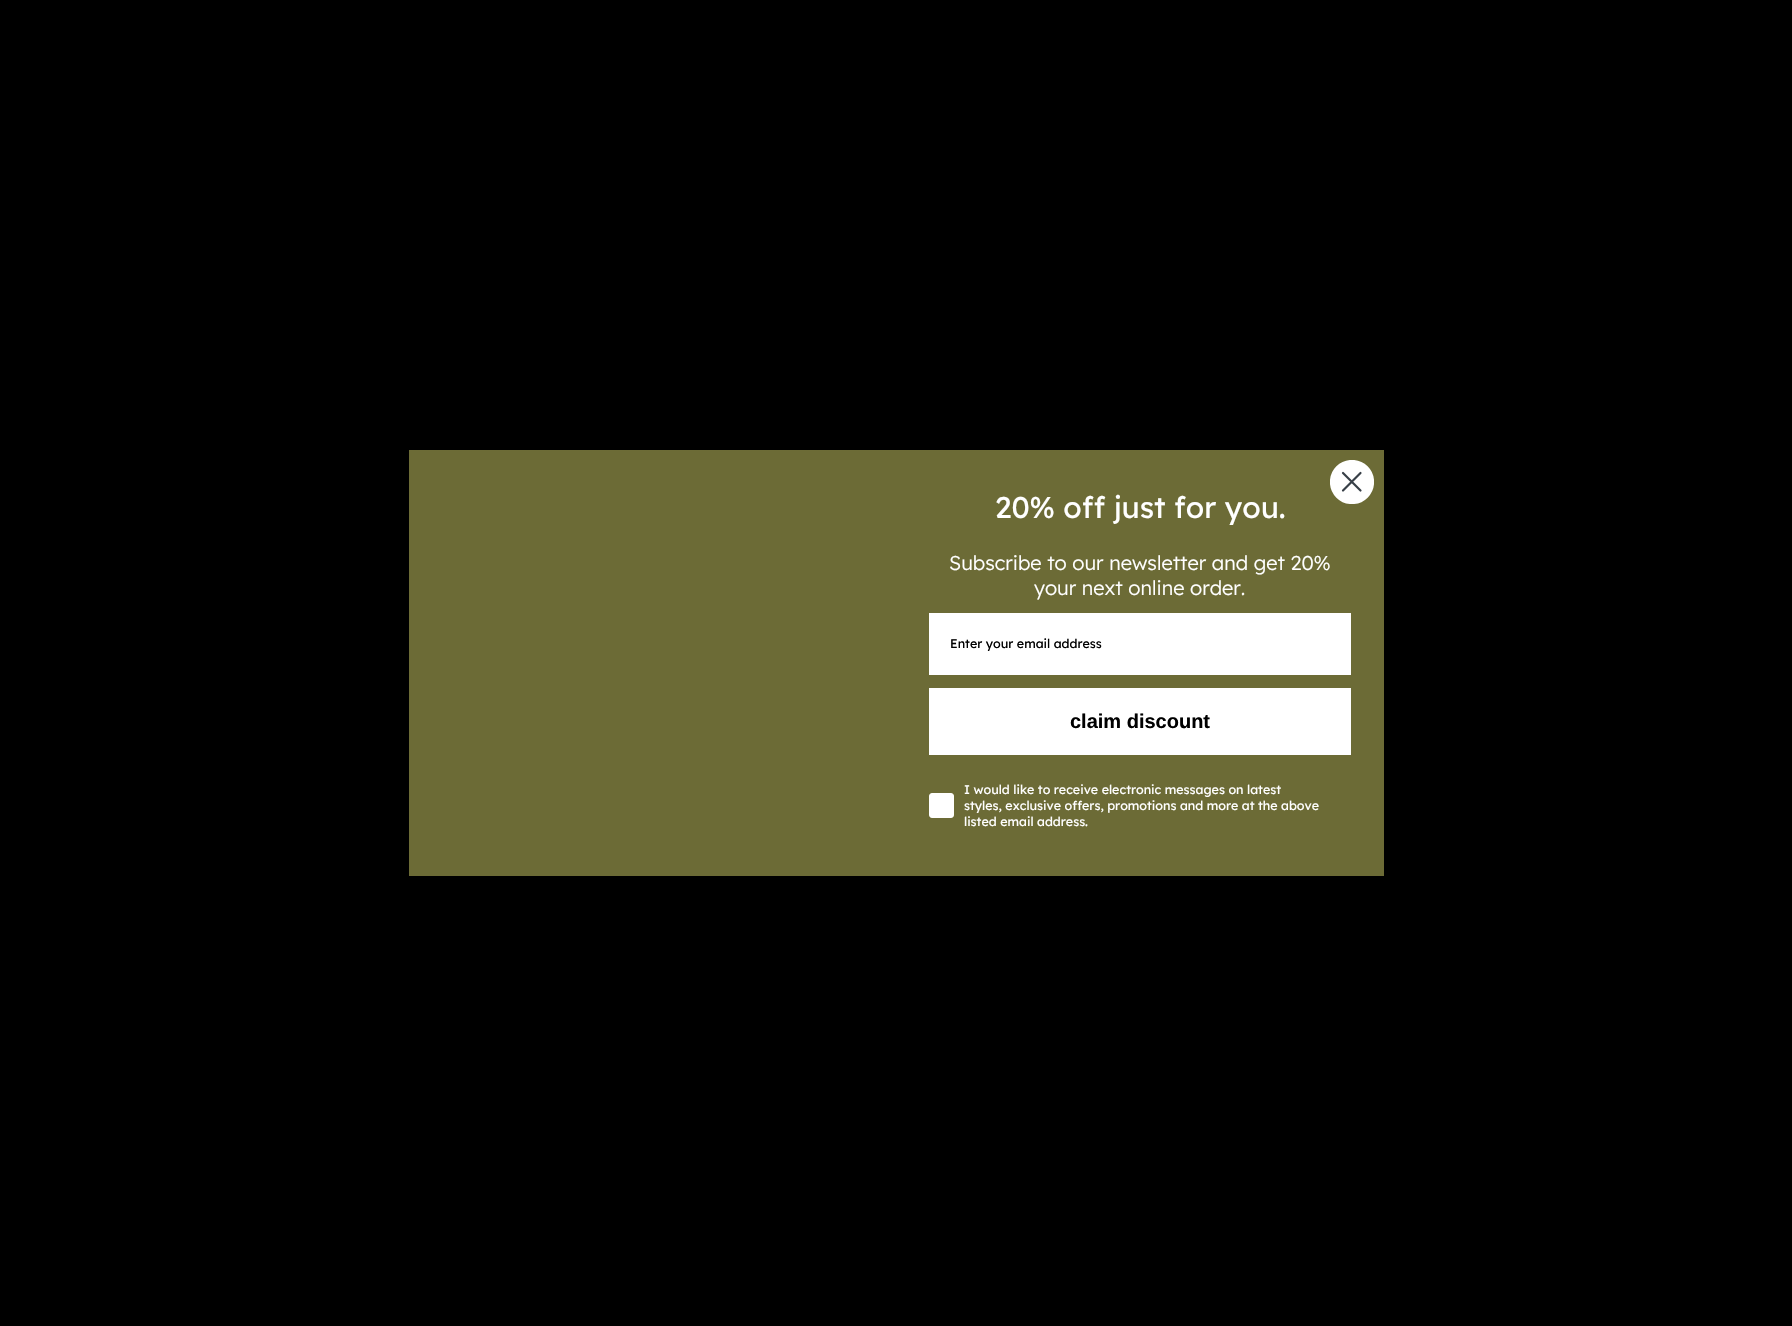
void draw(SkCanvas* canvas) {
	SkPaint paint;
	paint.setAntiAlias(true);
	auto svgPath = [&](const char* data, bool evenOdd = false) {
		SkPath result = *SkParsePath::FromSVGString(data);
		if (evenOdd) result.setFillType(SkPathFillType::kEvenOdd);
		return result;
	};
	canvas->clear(0xff000000);
	paint.setColor(0xff6c6b36);
	canvas->drawRect(SkRect::MakeXYWH(409, 450, 975, 426), paint);
	paint.setColor(0xffffffff);
	canvas->drawCircle(1352, 482, 21, paint);
	canvas->save();
	canvas->clipRect(SkRect::MakeXYWH(1330, 460, 44, 44));
	paint.setStroke(true);
	paint.setStrokeWidth(2.2);
	canvas->drawCircle(1352, 482, 21, paint);
	canvas->restore();
	paint.setStrokeCap(SkPaint::kRound_Cap);
	paint.setStrokeJoin(SkPaint::kRound_Join);
	paint.setColor(0xff373f47);
	canvas->drawPath(svgPath("M1343 473L1360.5 490.5M1343 490.5L1360.5 473Z"), paint);
	SkFont f1(fontMgr->matchFamilyStyle("Lexend", SkFontStyle::Normal()), 30);
	f1.setSubpixel(true);
	paint.setStroke(false);
	paint.setColor(0xffffffff);
	canvas->drawString("20% off just for you.", 995, 518, f1, paint);
	SkFont f2(fontMgr->matchFamilyStyle("Lexend", SkFontStyle(300, SkFontStyle::kNormal_Width, SkFontStyle::kUpright_Slant)), 20);
	f2.setSubpixel(true);
	canvas->drawString("Subscribe to our newsletter and get 20%", 949, 570, f2, paint);
	canvas->drawString("your next online order.", 1034, 595, f2, paint);
	canvas->drawRect(SkRect::MakeXYWH(929, 613, 422, 62), paint);
	SkFont f3(fontMgr->matchFamilyStyle("Lexend", SkFontStyle::Normal()), 12.5);
	f3.setSubpixel(true);
	paint.setColor(0xff000000);
	canvas->drawString("Enter your email address", 950, 648, f3, paint);
	paint.setColor(0xffffffff);
	canvas->drawRect(SkRect::MakeXYWH(929, 688, 422, 67), paint);
	SkFont f4(fontMgr->matchFamilyStyle("Liberation Sans", SkFontStyle::Bold()), 20);
	f4.setSubpixel(true);
	paint.setColor(0xff000000);
	canvas->drawString("claim discount", 1070, 728, f4, paint);
	paint.setColor(0xffffffff);
	canvas->drawRoundRect(SkRect::MakeXYWH(929.5, 793.5, 24, 24), 2.5, 2.5, paint);
	paint.setStroke(true);
	paint.setStrokeWidth(1);
	paint.setStrokeCap(SkPaint::kButt_Cap);
	paint.setStrokeJoin(SkPaint::kMiter_Join);
	canvas->drawRoundRect(SkRect::MakeXYWH(929.5, 793.5, 24, 24), 2.5, 2.5, paint);
	paint.setStroke(false);
	canvas->drawString("I would like to receive electronic messages on latest", 964, 794, f3, paint);
	canvas->drawString("styles, exclusive offers, promotions and more at the above", 964, 810, f3, paint);
	canvas->drawString("listed email address.", 964, 826, f3, paint);
}
